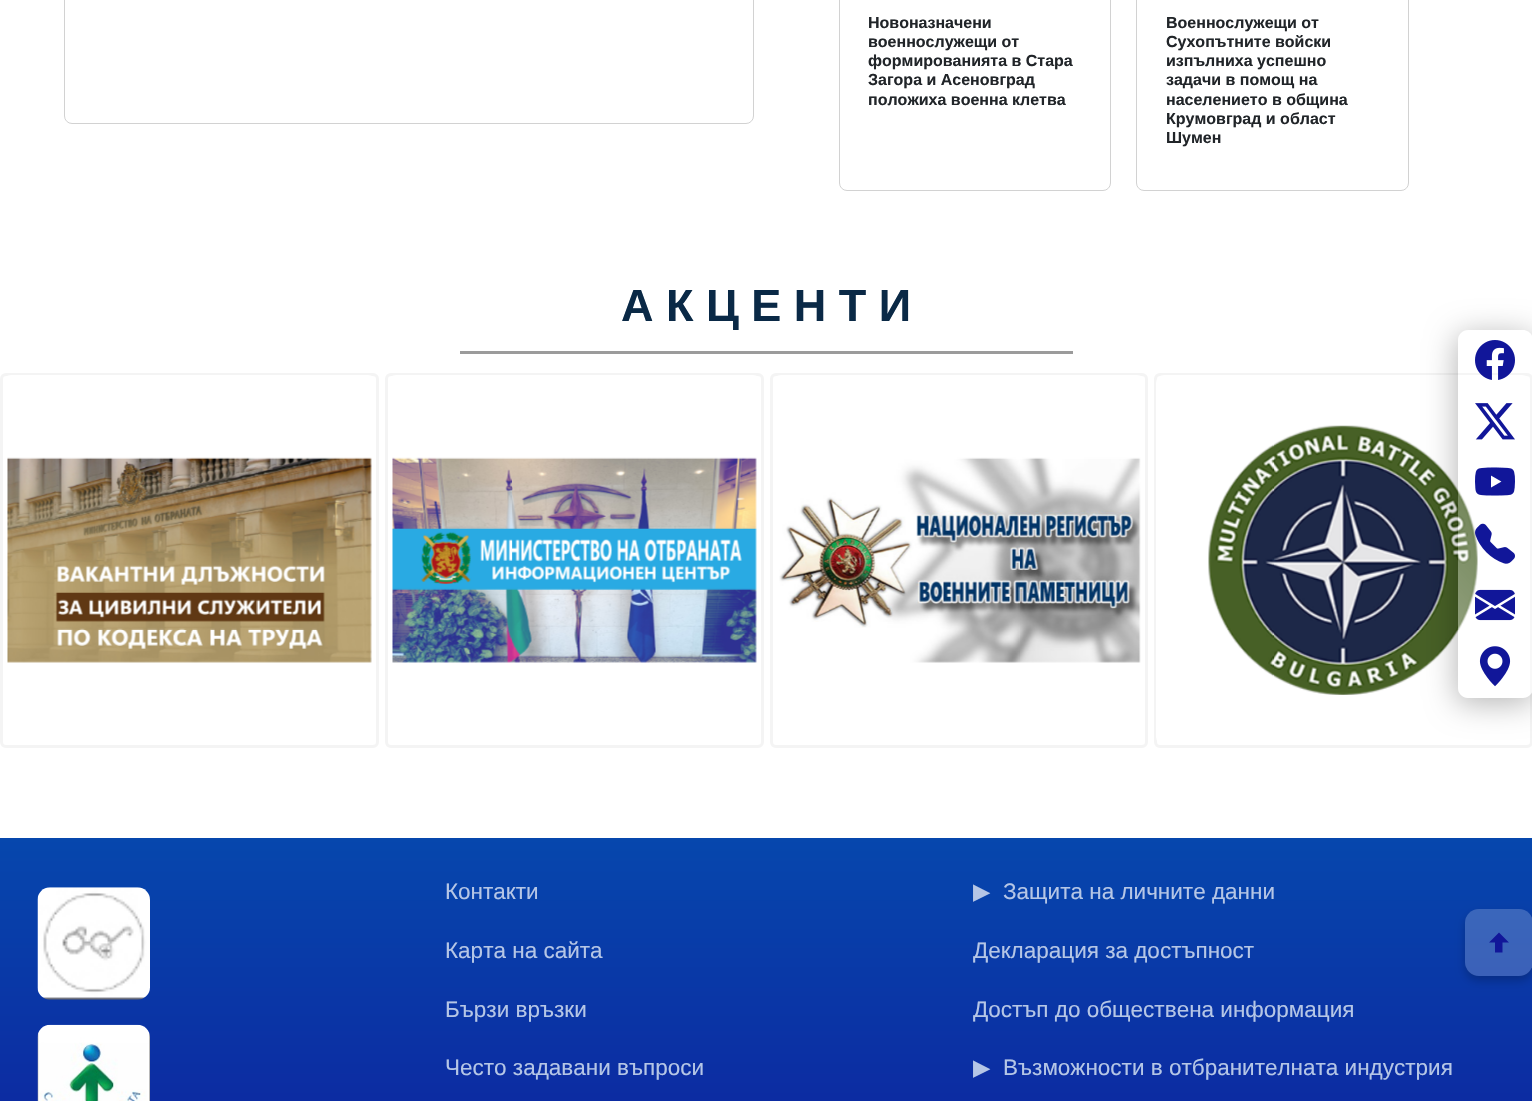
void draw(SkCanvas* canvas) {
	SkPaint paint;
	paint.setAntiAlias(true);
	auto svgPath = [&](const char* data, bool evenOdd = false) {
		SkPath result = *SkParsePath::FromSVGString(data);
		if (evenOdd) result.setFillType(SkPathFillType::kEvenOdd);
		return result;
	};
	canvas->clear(0xffffffff);
	paint.setStroke(true);
	paint.setStrokeWidth(1);
	paint.setColor(0xffd2d2d2);
	canvas->drawRoundRect(SkRect::MakeXYWH(64.5, -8.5, 689, 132), 7.5, 7.5, paint);
	canvas->drawRoundRect(SkRect::MakeXYWH(839.5, -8.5, 271, 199), 7.5, 7.5, paint);
	SkFont f1(fontMgr->matchFamilyStyle("Liberation Sans", SkFontStyle::Bold()), 16);
	f1.setSubpixel(true);
	paint.setStroke(false);
	paint.setColor(0xff212529);
	canvas->drawString("Новоназначени", 868, 28, f1, paint);
	canvas->drawString("военнослужещи от", 868, 47, f1, paint);
	canvas->drawString("формированията в Стара", 868, 66, f1, paint);
	canvas->drawString("Загора и Асеновград", 868, 85, f1, paint);
	canvas->drawString("положиха военна клетва", 868, 105, f1, paint);
	paint.setStroke(true);
	paint.setColor(0xffd2d2d2);
	canvas->drawRoundRect(SkRect::MakeXYWH(1136.5, -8.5, 272, 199), 7.5, 7.5, paint);
	paint.setStroke(false);
	paint.setColor(0xff212529);
	canvas->drawString("Военнослужещи от", 1166, 28, f1, paint);
	canvas->drawString("Сухопътните войски", 1166, 47, f1, paint);
	canvas->drawString("изпълниха успешно", 1166, 66, f1, paint);
	canvas->drawString("задачи в помощ на", 1166, 85, f1, paint);
	canvas->drawString("населението в община", 1166, 105, f1, paint);
	canvas->drawString("Крумовград и област", 1166, 124, f1, paint);
	canvas->drawString("Шумен", 1166, 143, f1, paint);
	SkFont f2(fontMgr->matchFamilyStyle("Liberation Sans", SkFontStyle::Bold()), 45);
	f2.setSubpixel(true);
	paint.setColor(0xff0a2946);
	canvas->drawString("А К Ц Е Н Т И", 621, 321, f2, paint);
	paint.setStroke(true);
	paint.setStrokeWidth(3);
	paint.setColor(0xfff4f4f4);
	canvas->drawRoundRect(SkRect::MakeXYWH(1155.5, 374.5, 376, 372), 4.5, 4.5, paint);
	paint.setStroke(false);
	paint.setColor(0xffffffff);
	canvas->drawRoundRect(SkRect::MakeXYWH(1156, 375, 374, 370), 8, 8, paint);
	canvas->drawImageRect(SkImages::DeferredFromEncodedData(SkData::MakeFromFileName("img10.png")), SkRect::MakeXYWH(1208, 425, 270, 270), SkSamplingOptions());
	canvas->save();
	canvas->clipPath(svgPath("M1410 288H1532V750H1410ZM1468 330H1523C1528.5 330 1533 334.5 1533 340V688C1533 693.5 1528.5 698 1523 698H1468C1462.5 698 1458 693.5 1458 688V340C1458 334.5 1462.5 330 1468 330Z", true), true);
	paint.setColor(0x47000000);
	paint.setMaskFilter(SkMaskFilter::MakeBlur(kNormal_SkBlurStyle, 15));
	canvas->drawRoundRect(SkRect::MakeXYWH(1456, 334, 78, 370), 11, 11, paint);
	paint.setMaskFilter(nullptr);
	canvas->restore();
	{
		const SkColor colors[] = {0x66ffffff, 0x1affffff};
		const float stops[] = {0.12, 0.77};
		const SkPoint ends[] = {{1383, 608}, {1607, 419}};
		paint.setShader(SkGradientShader::MakeLinear(ends, colors, stops, 2, SkTileMode::kClamp));
		paint.setAlpha(255);
	}
	canvas->drawRoundRect(SkRect::MakeXYWH(1458, 330, 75, 368), 10, 10, paint);
	canvas->drawImageRect(SkImages::DeferredFromEncodedData(SkData::MakeFromFileName("img1.png")), SkRect::MakeXYWH(1475, 340, 40, 40), SkSamplingOptions());
	canvas->drawImageRect(SkImages::DeferredFromEncodedData(SkData::MakeFromFileName("img2.png")), SkRect::MakeXYWH(1475, 403, 40, 37), SkSamplingOptions());
	canvas->drawImageRect(SkImages::DeferredFromEncodedData(SkData::MakeFromFileName("img3.png")), SkRect::MakeXYWH(1475, 467, 40, 29), SkSamplingOptions());
	canvas->drawImageRect(SkImages::DeferredFromEncodedData(SkData::MakeFromFileName("img4.png")), SkRect::MakeXYWH(1475, 523, 40, 41), SkSamplingOptions());
	canvas->drawImageRect(SkImages::DeferredFromEncodedData(SkData::MakeFromFileName("img5.png")), SkRect::MakeXYWH(1475, 589, 40, 32), SkSamplingOptions());
	canvas->drawImageRect(SkImages::DeferredFromEncodedData(SkData::MakeFromFileName("img6.png")), SkRect::MakeXYWH(1479, 646, 32, 41), SkSamplingOptions());
	paint.setShader(nullptr);
	paint.setColor(0xff9b9b9b);
	canvas->drawRect(SkRect::MakeXYWH(460, 351, 613, 3), paint);
	paint.setStroke(true);
	paint.setColor(0xfff4f4f4);
	canvas->drawRoundRect(SkRect::MakeXYWH(1.5, 374.5, 376, 372), 4.5, 4.5, paint);
	paint.setStroke(false);
	paint.setColor(0xffffffff);
	canvas->drawRoundRect(SkRect::MakeXYWH(3, 375, 373, 370), 8, 8, paint);
	canvas->drawImageRect(SkImages::DeferredFromEncodedData(SkData::MakeFromFileName("img7.png")), SkRect::MakeXYWH(7, 457, 365, 206), SkSamplingOptions());
	paint.setStroke(true);
	paint.setColor(0xfff4f4f4);
	canvas->drawRoundRect(SkRect::MakeXYWH(386.5, 374.5, 376, 372), 4.5, 4.5, paint);
	paint.setStroke(false);
	paint.setColor(0xffffffff);
	canvas->drawRoundRect(SkRect::MakeXYWH(388, 375, 373, 370), 8, 8, paint);
	canvas->drawImageRect(SkImages::DeferredFromEncodedData(SkData::MakeFromFileName("img8.png")), SkRect::MakeXYWH(392, 457, 365, 206), SkSamplingOptions());
	paint.setStroke(true);
	paint.setColor(0xfff4f4f4);
	canvas->drawRoundRect(SkRect::MakeXYWH(771.5, 374.5, 375, 372), 4.5, 4.5, paint);
	paint.setStroke(false);
	paint.setColor(0xffffffff);
	canvas->drawRoundRect(SkRect::MakeXYWH(773, 375, 372, 370), 8, 8, paint);
	canvas->drawImageRect(SkImages::DeferredFromEncodedData(SkData::MakeFromFileName("img9.png")), SkRect::MakeXYWH(779, 457, 362, 206), SkSamplingOptions());
	{
		const SkColor colors[] = {0xff0647ad, 0xff111699};
		const float stops[] = {0, 1};
		const SkPoint ends[] = {{766, 837}, {766, 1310}};
		paint.setShader(SkGradientShader::MakeLinear(ends, colors, stops, 2, SkTileMode::kClamp));
		paint.setAlpha(255);
	}
	canvas->drawRect(SkRect::MakeXYWH(0, 838, 1532, 263), paint);
	canvas->drawImageRect(SkImages::DeferredFromEncodedData(SkData::MakeFromFileName("img11.png")), SkRect::MakeXYWH(37, 887, 113, 113), SkSamplingOptions());
	canvas->drawImageRect(SkImages::DeferredFromEncodedData(SkData::MakeFromFileName("img12.png")), SkRect::MakeXYWH(37, 1024, 113, 77), SkSamplingOptions());
	SkFont f3(fontMgr->matchFamilyStyle("Liberation Sans", SkFontStyle::Normal()), 22.5);
	f3.setSubpixel(true);
	paint.setShader(nullptr);
	paint.setColor(0xffb5c6e6);
	canvas->drawString("Контакти", 445, 899, f3, paint);
	canvas->drawString("Карта на сайта", 445, 958, f3, paint);
	canvas->drawString("Бързи връзки", 445, 1017, f3, paint);
	canvas->drawString("Често задавани въпроси", 445, 1075, f3, paint);
	SkFont f4(fontMgr->matchFamilyStyle("DejaVu Sans", SkFontStyle::Normal()), 22.5);
	f4.setSubpixel(true);
	canvas->drawString("▶", 973, 899, f4, paint);
	canvas->drawString("Защита на личните данни", 1003, 899, f3, paint);
	canvas->drawString("Декларация за достъпност", 973, 958, f3, paint);
	canvas->drawString("Достъп до обществена информация", 973, 1017, f3, paint);
	canvas->drawString("▶", 973, 1075, f4, paint);
	canvas->drawString("Възможности в отбранителната индустрия", 1003, 1075, f3, paint);
	canvas->save();
	canvas->clipPath(svgPath("M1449 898H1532V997H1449ZM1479 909H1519C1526.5 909 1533 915.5 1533 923V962C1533 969.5 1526.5 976 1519 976H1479C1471.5 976 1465 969.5 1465 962V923C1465 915.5 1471.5 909 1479 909Z", true), true);
	paint.setColor(0x33000000);
	paint.setMaskFilter(SkMaskFilter::MakeBlur(kNormal_SkBlurStyle, 5));
	canvas->drawRoundRect(SkRect::MakeXYWH(1465, 914, 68, 67), 14, 14, paint);
	paint.setMaskFilter(nullptr);
	canvas->restore();
	paint.setColor(0x33ffffff);
	canvas->drawRoundRect(SkRect::MakeXYWH(1465, 909, 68, 67), 14, 14, paint);
	paint.setColor(0xff111699);
	canvas->drawPath(svgPath("M1499 932.5L1489 942.5H1495V952.5H1502.5V942.5H1509Z"), paint);
}
